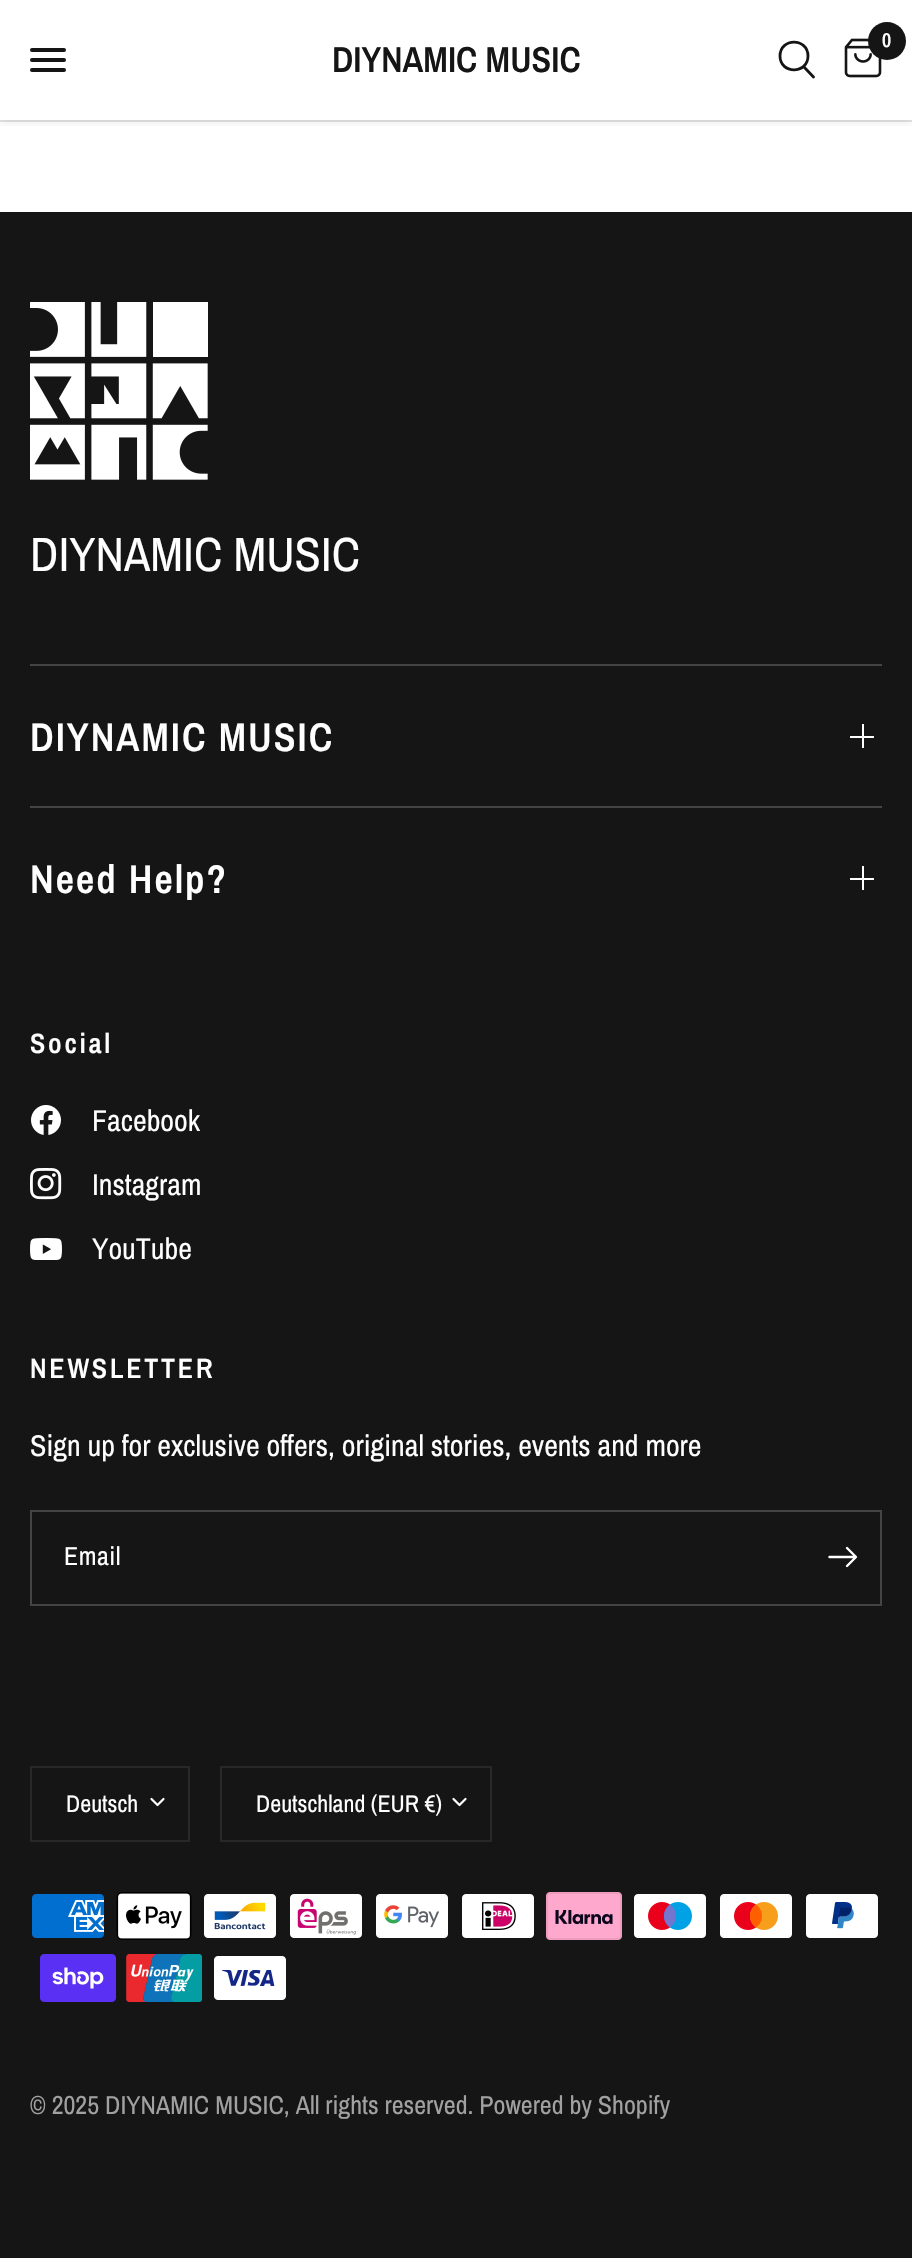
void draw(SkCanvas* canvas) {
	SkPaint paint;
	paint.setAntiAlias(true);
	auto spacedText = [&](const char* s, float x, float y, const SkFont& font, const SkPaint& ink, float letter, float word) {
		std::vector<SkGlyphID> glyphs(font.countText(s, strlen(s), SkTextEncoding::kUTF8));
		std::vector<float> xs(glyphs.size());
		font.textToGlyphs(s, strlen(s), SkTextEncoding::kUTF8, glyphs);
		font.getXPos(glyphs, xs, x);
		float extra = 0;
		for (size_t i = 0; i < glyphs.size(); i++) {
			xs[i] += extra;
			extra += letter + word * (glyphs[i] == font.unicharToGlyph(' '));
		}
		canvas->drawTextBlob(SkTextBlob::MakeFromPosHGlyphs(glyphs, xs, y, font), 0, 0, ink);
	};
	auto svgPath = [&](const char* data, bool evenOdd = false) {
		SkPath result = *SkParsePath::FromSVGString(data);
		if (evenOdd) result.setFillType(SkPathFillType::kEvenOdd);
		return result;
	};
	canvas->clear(0xffffffff);
	paint.setColor(0xffe2e2e2);
	canvas->drawRect(SkRect::MakeXYWH(0, 120, 912, 2), paint);
	canvas->save();
	canvas->clipRect(SkRect::MakeXYWH(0, 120, 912, 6));
	paint.setColor(0x0f000000);
	paint.setMaskFilter(SkMaskFilter::MakeBlur(kNormal_SkBlurStyle, 5));
	canvas->drawRect(SkRect::MakeXYWH(0, 4, 912, 120), paint);
	paint.setMaskFilter(nullptr);
	canvas->restore();
	paint.setStroke(true);
	paint.setStrokeWidth(2.8);
	paint.setStrokeCap(SkPaint::kRound_Cap);
	paint.setStrokeJoin(SkPaint::kRound_Join);
	paint.setColor(0xff151515);
	canvas->drawPath(svgPath("M804 67L813.5 77M808 56C808 74.5 780 74.5 780 56C780 37.5 808 37.5 808 56Z"), paint);
	canvas->drawImageRect(SkImages::DeferredFromEncodedData(SkData::MakeFromFileName("img1.png")), SkRect::MakeXYWH(844, 38, 38, 40), SkSamplingOptions());
	paint.setStroke(false);
	canvas->drawCircle(887, 41, 19, paint);
	SkFont f1(fontMgr->matchFamilyStyle("Archivo Narrow", SkFontStyle(600, SkFontStyle::kNormal_Width, SkFontStyle::kUpright_Slant)), 20);
	f1.setSubpixel(true);
	paint.setColor(0xffffffff);
	canvas->drawString("0", 882, 47, f1, paint);
	paint.setColor(0xff151515);
	canvas->drawRoundRect(SkRect::MakeXYWH(30, 48, 36, 4), 2, 2, paint);
	canvas->drawRoundRect(SkRect::MakeXYWH(30, 58, 36, 4), 2, 2, paint);
	canvas->drawRoundRect(SkRect::MakeXYWH(30, 68, 36, 4), 2, 2, paint);
	SkFont f2(fontMgr->matchFamilyStyle("Archivo Narrow", SkFontStyle(600, SkFontStyle::kNormal_Width, SkFontStyle::kUpright_Slant)), 36);
	f2.setSubpixel(true);
	canvas->drawString("DIYNAMIC MUSIC", 332, 72, f2, paint);
	canvas->drawRect(SkRect::MakeXYWH(0, 212, 912, 2046), paint);
	canvas->drawImageRect(SkImages::DeferredFromEncodedData(SkData::MakeFromFileName("img2.png")), SkRect::MakeXYWH(30, 302, 178, 178), SkSamplingOptions());
	SkFont f3(fontMgr->matchFamilyStyle("Archivo Narrow", SkFontStyle::Normal()), 48);
	f3.setSubpixel(true);
	paint.setColor(0xffffffff);
	canvas->drawString("DIYNAMIC MUSIC", 30, 571, f3, paint);
	paint.setColor(0xff444444);
	canvas->drawRect(SkRect::MakeXYWH(30, 664, 852, 2), paint);
	SkFont f4(fontMgr->matchFamilyStyle("Archivo Narrow", SkFontStyle(600, SkFontStyle::kNormal_Width, SkFontStyle::kUpright_Slant)), 40);
	f4.setSubpixel(true);
	paint.setColor(0xffffffff);
	spacedText("DIYNAMIC MUSIC", 30, 751, f4, paint, 2, 0);
	canvas->drawRect(SkRect::MakeXYWH(862, 724, 2, 24), paint);
	canvas->drawRect(SkRect::MakeXYWH(850, 736, 24, 2), paint);
	paint.setColor(0xff444444);
	canvas->drawRect(SkRect::MakeXYWH(30, 806, 852, 2), paint);
	paint.setColor(0xffffffff);
	spacedText("Need Help?", 30, 893, f4, paint, 2, 0);
	canvas->drawRect(SkRect::MakeXYWH(862, 866, 2, 24), paint);
	canvas->drawRect(SkRect::MakeXYWH(850, 878, 24, 2), paint);
	SkFont f5(fontMgr->matchFamilyStyle("Archivo Narrow", SkFontStyle(600, SkFontStyle::kNormal_Width, SkFontStyle::kUpright_Slant)), 28);
	f5.setSubpixel(true);
	spacedText("Social", 30, 1053, f5, paint, 2.75, 0);
	canvas->drawImageRect(SkImages::DeferredFromEncodedData(SkData::MakeFromFileName("img3.png")), SkRect::MakeXYWH(31, 1105, 30, 30), SkSamplingOptions());
	SkFont f6(fontMgr->matchFamilyStyle("Archivo Narrow", SkFontStyle::Normal()), 30);
	f6.setSubpixel(true);
	canvas->drawString("Facebook", 92, 1131, f6, paint);
	canvas->drawImageRect(SkImages::DeferredFromEncodedData(SkData::MakeFromFileName("img4.png")), SkRect::MakeXYWH(30, 1168, 32, 32), SkSamplingOptions());
	canvas->drawString("Instagram", 92, 1195, f6, paint);
	canvas->drawImageRect(SkImages::DeferredFromEncodedData(SkData::MakeFromFileName("img5.png")), SkRect::MakeXYWH(30, 1238, 32, 22), SkSamplingOptions());
	canvas->drawString("YouTube", 92, 1259, f6, paint);
	spacedText("NEWSLETTER", 30, 1378, f5, paint, 2.75, 0);
	canvas->drawString("Sign up for exclusive offers, original stories, events and more", 30, 1456, f6, paint);
	paint.setStroke(true);
	paint.setStrokeWidth(2);
	paint.setStrokeCap(SkPaint::kButt_Cap);
	paint.setStrokeJoin(SkPaint::kMiter_Join);
	paint.setColor(0xff444444);
	canvas->drawRect(SkRect::MakeXYWH(31, 1511, 850, 94), paint);
	SkFont f7(fontMgr->matchFamilyStyle("Archivo Narrow", SkFontStyle::Normal()), 26);
	f7.setSubpixel(true);
	paint.setStroke(false);
	paint.setColor(0xffffffff);
	spacedText("Email", 64, 1565, f7, paint, 0.5, 0);
	paint.setStroke(true);
	paint.setStrokeWidth(2.4);
	paint.setStrokeCap(SkPaint::kRound_Cap);
	paint.setStrokeJoin(SkPaint::kRound_Join);
	canvas->drawPath(svgPath("M829.5 1557H853.5M847 1548L856 1557L847 1566"), paint);
	paint.setStrokeWidth(2);
	paint.setStrokeCap(SkPaint::kButt_Cap);
	paint.setStrokeJoin(SkPaint::kMiter_Join);
	paint.setColor(0xff282828);
	canvas->drawRect(SkRect::MakeXYWH(31, 1767, 158, 74), paint);
	SkFont f8(fontMgr->matchFamilyStyle("Archivo Narrow", SkFontStyle::Normal()), 24);
	f8.setSubpixel(true);
	paint.setStroke(false);
	paint.setColor(0xffffffff);
	canvas->drawString("Deutsch", 66, 1812, f8, paint);
	paint.setStroke(true);
	paint.setStrokeWidth(2.2);
	paint.setStrokeCap(SkPaint::kRound_Cap);
	paint.setStrokeJoin(SkPaint::kRound_Join);
	canvas->drawPath(svgPath("M163.5 1799L157.5 1805L151.5 1799"), paint);
	paint.setStrokeWidth(2);
	paint.setStrokeCap(SkPaint::kButt_Cap);
	paint.setStrokeJoin(SkPaint::kMiter_Join);
	paint.setColor(0xff282828);
	canvas->drawRect(SkRect::MakeXYWH(221, 1767, 270, 74), paint);
	paint.setStroke(false);
	paint.setColor(0xffffffff);
	canvas->drawString("Deutschland (EUR €)", 256, 1812, f8, paint);
	paint.setStroke(true);
	paint.setStrokeWidth(2.2);
	paint.setStrokeCap(SkPaint::kRound_Cap);
	paint.setStrokeJoin(SkPaint::kRound_Join);
	canvas->drawPath(svgPath("M465.5 1799L459.5 1805L453.5 1799"), paint);
	canvas->drawImageRect(SkImages::DeferredFromEncodedData(SkData::MakeFromFileName("img6.png")), SkRect::MakeXYWH(32, 1894, 72, 44), SkSamplingOptions());
	canvas->drawImageRect(SkImages::DeferredFromEncodedData(SkData::MakeFromFileName("img7.png")), SkRect::MakeXYWH(116, 1892, 76, 48), SkSamplingOptions());
	canvas->drawImageRect(SkImages::DeferredFromEncodedData(SkData::MakeFromFileName("img8.png")), SkRect::MakeXYWH(204, 1894, 72, 44), SkSamplingOptions());
	canvas->drawImageRect(SkImages::DeferredFromEncodedData(SkData::MakeFromFileName("img9.png")), SkRect::MakeXYWH(290, 1894, 72, 44), SkSamplingOptions());
	canvas->drawImageRect(SkImages::DeferredFromEncodedData(SkData::MakeFromFileName("img10.png")), SkRect::MakeXYWH(376, 1894, 72, 44), SkSamplingOptions());
	canvas->drawImageRect(SkImages::DeferredFromEncodedData(SkData::MakeFromFileName("img11.png")), SkRect::MakeXYWH(462, 1894, 72, 44), SkSamplingOptions());
	canvas->drawImageRect(SkImages::DeferredFromEncodedData(SkData::MakeFromFileName("img12.png")), SkRect::MakeXYWH(546, 1892, 76, 48), SkSamplingOptions());
	canvas->drawImageRect(SkImages::DeferredFromEncodedData(SkData::MakeFromFileName("img13.png")), SkRect::MakeXYWH(634, 1894, 72, 44), SkSamplingOptions());
	canvas->drawImageRect(SkImages::DeferredFromEncodedData(SkData::MakeFromFileName("img14.png")), SkRect::MakeXYWH(720, 1894, 72, 44), SkSamplingOptions());
	canvas->drawImageRect(SkImages::DeferredFromEncodedData(SkData::MakeFromFileName("img15.png")), SkRect::MakeXYWH(806, 1894, 72, 44), SkSamplingOptions());
	canvas->drawImageRect(SkImages::DeferredFromEncodedData(SkData::MakeFromFileName("img16.png")), SkRect::MakeXYWH(40, 1954, 76, 48), SkSamplingOptions());
	canvas->drawImageRect(SkImages::DeferredFromEncodedData(SkData::MakeFromFileName("img17.png")), SkRect::MakeXYWH(126, 1954, 76, 48), SkSamplingOptions());
	canvas->drawImageRect(SkImages::DeferredFromEncodedData(SkData::MakeFromFileName("img18.png")), SkRect::MakeXYWH(214, 1956, 72, 44), SkSamplingOptions());
	paint.setStroke(false);
	paint.setColor(0xffa1a1a1);
	canvas->drawString("© 2025 DIYNAMIC MUSIC, All rights reserved. Powered by Shopify", 30, 2114, f7, paint);
}
